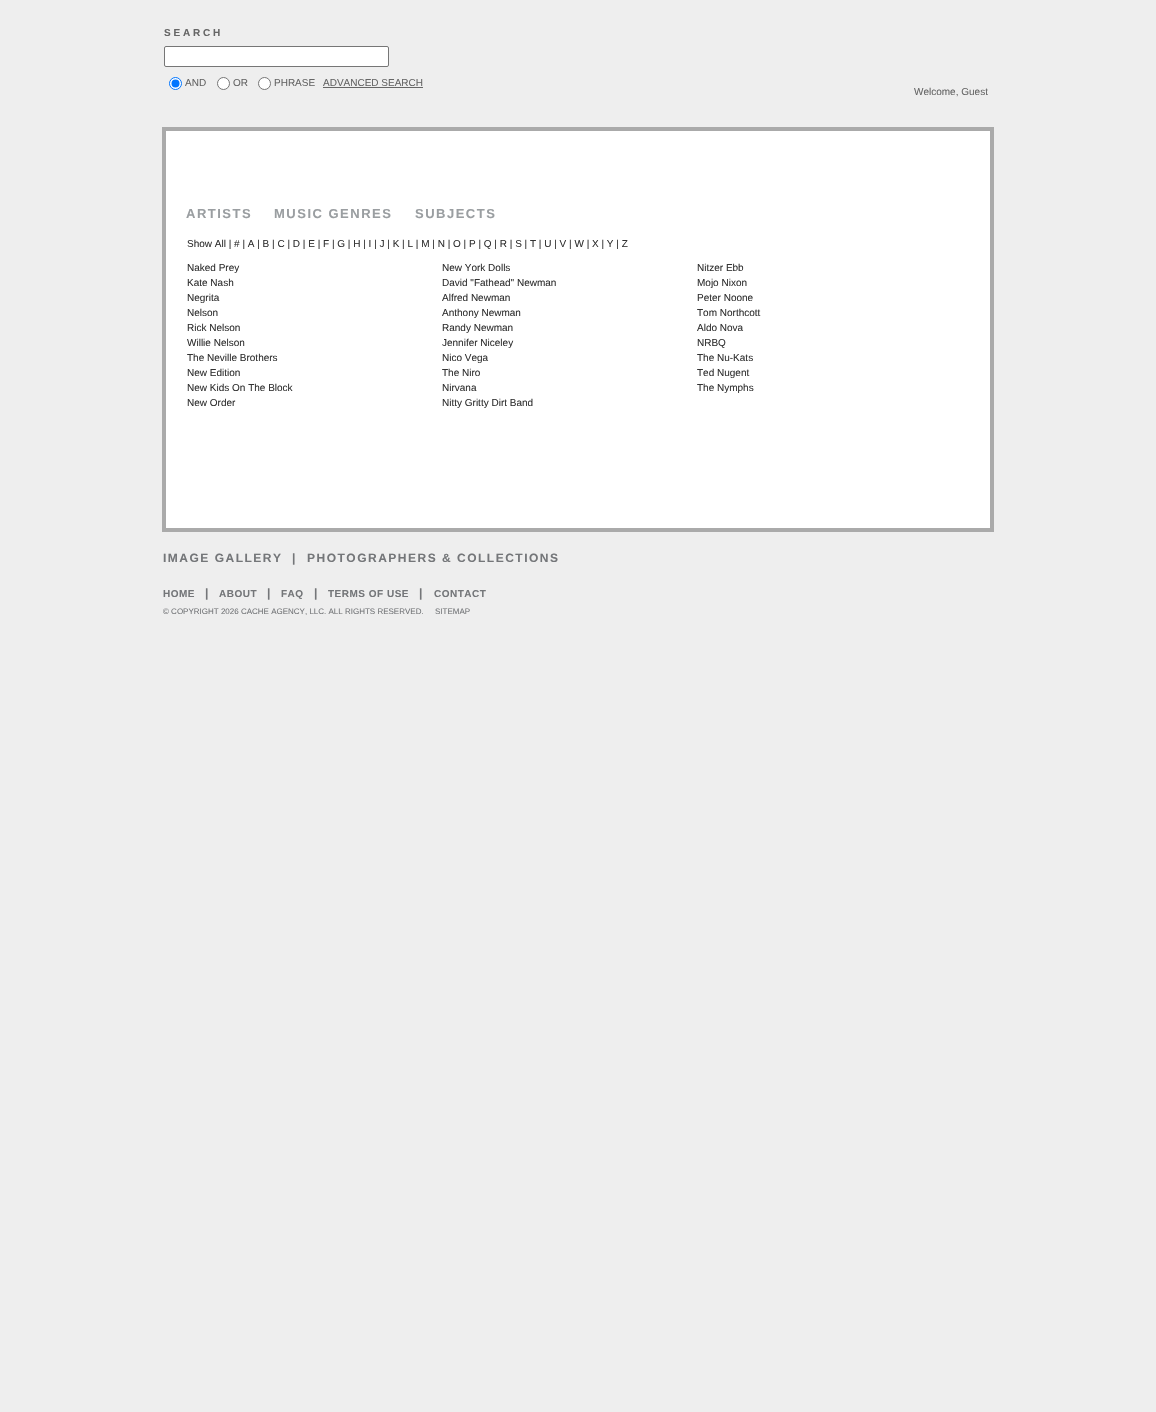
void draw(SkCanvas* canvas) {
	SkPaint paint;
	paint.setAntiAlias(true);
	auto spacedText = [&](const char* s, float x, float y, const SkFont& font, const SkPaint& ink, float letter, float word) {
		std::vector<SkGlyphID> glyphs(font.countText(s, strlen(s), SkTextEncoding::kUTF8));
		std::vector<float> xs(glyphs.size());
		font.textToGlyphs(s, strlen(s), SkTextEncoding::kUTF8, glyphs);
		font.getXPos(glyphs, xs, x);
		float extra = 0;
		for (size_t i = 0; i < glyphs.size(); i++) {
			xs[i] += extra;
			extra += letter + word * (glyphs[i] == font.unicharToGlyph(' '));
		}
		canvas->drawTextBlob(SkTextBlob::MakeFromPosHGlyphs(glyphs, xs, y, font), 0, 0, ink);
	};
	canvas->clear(0xffeeeeee);
	SkFont f1(fontMgr->matchFamilyStyle("Liberation Sans", SkFontStyle::Bold()), 10);
	f1.setSubpixel(true);
	paint.setColor(0xff666666);
	canvas->drawString("S E A R C H", 164, 36, f1, paint);
	paint.setColor(0xffffffff);
	canvas->drawRoundRect(SkRect::MakeXYWH(164.5, 46.5, 224, 20), 1.5, 1.5, paint);
	paint.setStroke(true);
	paint.setStrokeWidth(1);
	paint.setColor(0xff767676);
	canvas->drawRoundRect(SkRect::MakeXYWH(164.5, 46.5, 224, 20), 1.5, 1.5, paint);
	paint.setStroke(false);
	paint.setColor(0xffffffff);
	canvas->drawCircle(175.5, 83.5, 6, paint);
	paint.setStroke(true);
	paint.setColor(0xff0075ff);
	canvas->drawCircle(175.5, 83.5, 6, paint);
	paint.setStroke(false);
	canvas->drawCircle(175.5, 83.5, 4, paint);
	SkFont f2(fontMgr->matchFamilyStyle("Liberation Sans", SkFontStyle::Normal()), 10);
	f2.setSubpixel(true);
	paint.setColor(0xff666666);
	canvas->drawString("AND", 185, 86, f2, paint);
	paint.setColor(0xffffffff);
	canvas->drawCircle(223.5, 83.5, 6, paint);
	paint.setStroke(true);
	paint.setColor(0xff767676);
	canvas->drawCircle(223.5, 83.5, 6, paint);
	paint.setStroke(false);
	paint.setColor(0xff666666);
	canvas->drawString("OR", 233, 86, f2, paint);
	paint.setColor(0xffffffff);
	canvas->drawCircle(264.5, 83.5, 6, paint);
	paint.setStroke(true);
	paint.setColor(0xff767676);
	canvas->drawCircle(264.5, 83.5, 6, paint);
	paint.setStroke(false);
	paint.setColor(0xff666666);
	canvas->drawString("PHRASE", 274, 86, f2, paint);
	canvas->drawString("ADVANCED SEARCH", 323, 86, f2, paint);
	canvas->drawRect(SkRect::MakeXYWH(323, 87, 100, 1), paint);
	canvas->drawString("Welcome, Guest", 914, 95, f2, paint);
	paint.setColor(0xffffffff);
	canvas->drawRect(SkRect::MakeXYWH(164, 129, 828, 401), paint);
	paint.setStroke(true);
	paint.setStrokeWidth(4);
	paint.setColor(0xffaaaaaa);
	canvas->drawRect(SkRect::MakeXYWH(164, 129, 828, 401), paint);
	SkFont f3(fontMgr->matchFamilyStyle("Liberation Sans", SkFontStyle::Bold()), 13);
	f3.setSubpixel(true);
	paint.setStroke(false);
	paint.setColor(0xff9a9ea1);
	spacedText("ARTISTS", 186, 218, f3, paint, 1.5, 0);
	spacedText("MUSIC GENRES", 274, 218, f3, paint, 1.5, 0);
	spacedText("SUBJECTS", 415, 218, f3, paint, 1.5, 0);
	paint.setColor(0xff333333);
	canvas->drawString("Show All | # | A | B | C | D | E | F | G | H | I | J | K | L | M | N | O | P | Q | R | S | T | U | V | W | X | Y | Z", 187, 247, f2, paint);
	canvas->drawString("Naked Prey", 187, 271, f2, paint);
	canvas->drawString("Kate Nash", 187, 286, f2, paint);
	canvas->drawString("Negrita", 187, 301, f2, paint);
	canvas->drawString("Nelson", 187, 316, f2, paint);
	canvas->drawString("Rick Nelson", 187, 331, f2, paint);
	canvas->drawString("Willie Nelson", 187, 346, f2, paint);
	canvas->drawString("The Neville Brothers", 187, 361, f2, paint);
	canvas->drawString("New Edition", 187, 376, f2, paint);
	canvas->drawString("New Kids On The Block", 187, 391, f2, paint);
	canvas->drawString("New Order", 187, 406, f2, paint);
	canvas->drawString("New York Dolls", 442, 271, f2, paint);
	canvas->drawString("David \"Fathead\" Newman", 442, 286, f2, paint);
	canvas->drawString("Alfred Newman", 442, 301, f2, paint);
	canvas->drawString("Anthony Newman", 442, 316, f2, paint);
	canvas->drawString("Randy Newman", 442, 331, f2, paint);
	canvas->drawString("Jennifer Niceley", 442, 346, f2, paint);
	canvas->drawString("Nico Vega", 442, 361, f2, paint);
	canvas->drawString("The Niro", 442, 376, f2, paint);
	canvas->drawString("Nirvana", 442, 391, f2, paint);
	canvas->drawString("Nitty Gritty Dirt Band", 442, 406, f2, paint);
	canvas->drawString("Nitzer Ebb", 697, 271, f2, paint);
	canvas->drawString("Mojo Nixon", 697, 286, f2, paint);
	canvas->drawString("Peter Noone", 697, 301, f2, paint);
	canvas->drawString("Tom Northcott", 697, 316, f2, paint);
	canvas->drawString("Aldo Nova", 697, 331, f2, paint);
	canvas->drawString("NRBQ", 697, 346, f2, paint);
	canvas->drawString("The Nu-Kats", 697, 361, f2, paint);
	canvas->drawString("Ted Nugent", 697, 376, f2, paint);
	canvas->drawString("The Nymphs", 697, 391, f2, paint);
	SkFont f4(fontMgr->matchFamilyStyle("Liberation Sans", SkFontStyle::Bold()), 12);
	f4.setSubpixel(true);
	paint.setColor(0xff747679);
	spacedText("IMAGE GALLERY", 163, 562, f4, paint, 1.5, 0);
	spacedText("|", 292, 562, f4, paint, 1.5, 0);
	spacedText("PHOTOGRAPHERS & COLLECTIONS", 307, 562, f4, paint, 1.5, 0);
	spacedText("HOME", 163, 597, f1, paint, 0.5, 0);
	spacedText("|", 205, 597, f4, paint, 1.5, 0);
	spacedText("ABOUT", 219, 597, f1, paint, 0.5, 0);
	spacedText("|", 267, 597, f4, paint, 1.5, 0);
	spacedText("FAQ", 281, 597, f1, paint, 0.5, 0);
	spacedText("|", 314, 597, f4, paint, 1.5, 0);
	spacedText("TERMS OF USE", 328, 597, f1, paint, 0.5, 0);
	spacedText("|", 419, 597, f4, paint, 1.5, 0);
	spacedText("CONTACT", 434, 597, f1, paint, 0.5, 0);
	SkFont f5(fontMgr->matchFamilyStyle("Liberation Sans", SkFontStyle::Normal()), 8);
	f5.setSubpixel(true);
	canvas->drawString("© COPYRIGHT 2026 CACHE AGENCY, LLC. ALL RIGHTS RESERVED.", 163, 614, f5, paint);
	canvas->drawString("SITEMAP", 435, 614, f5, paint);
}
